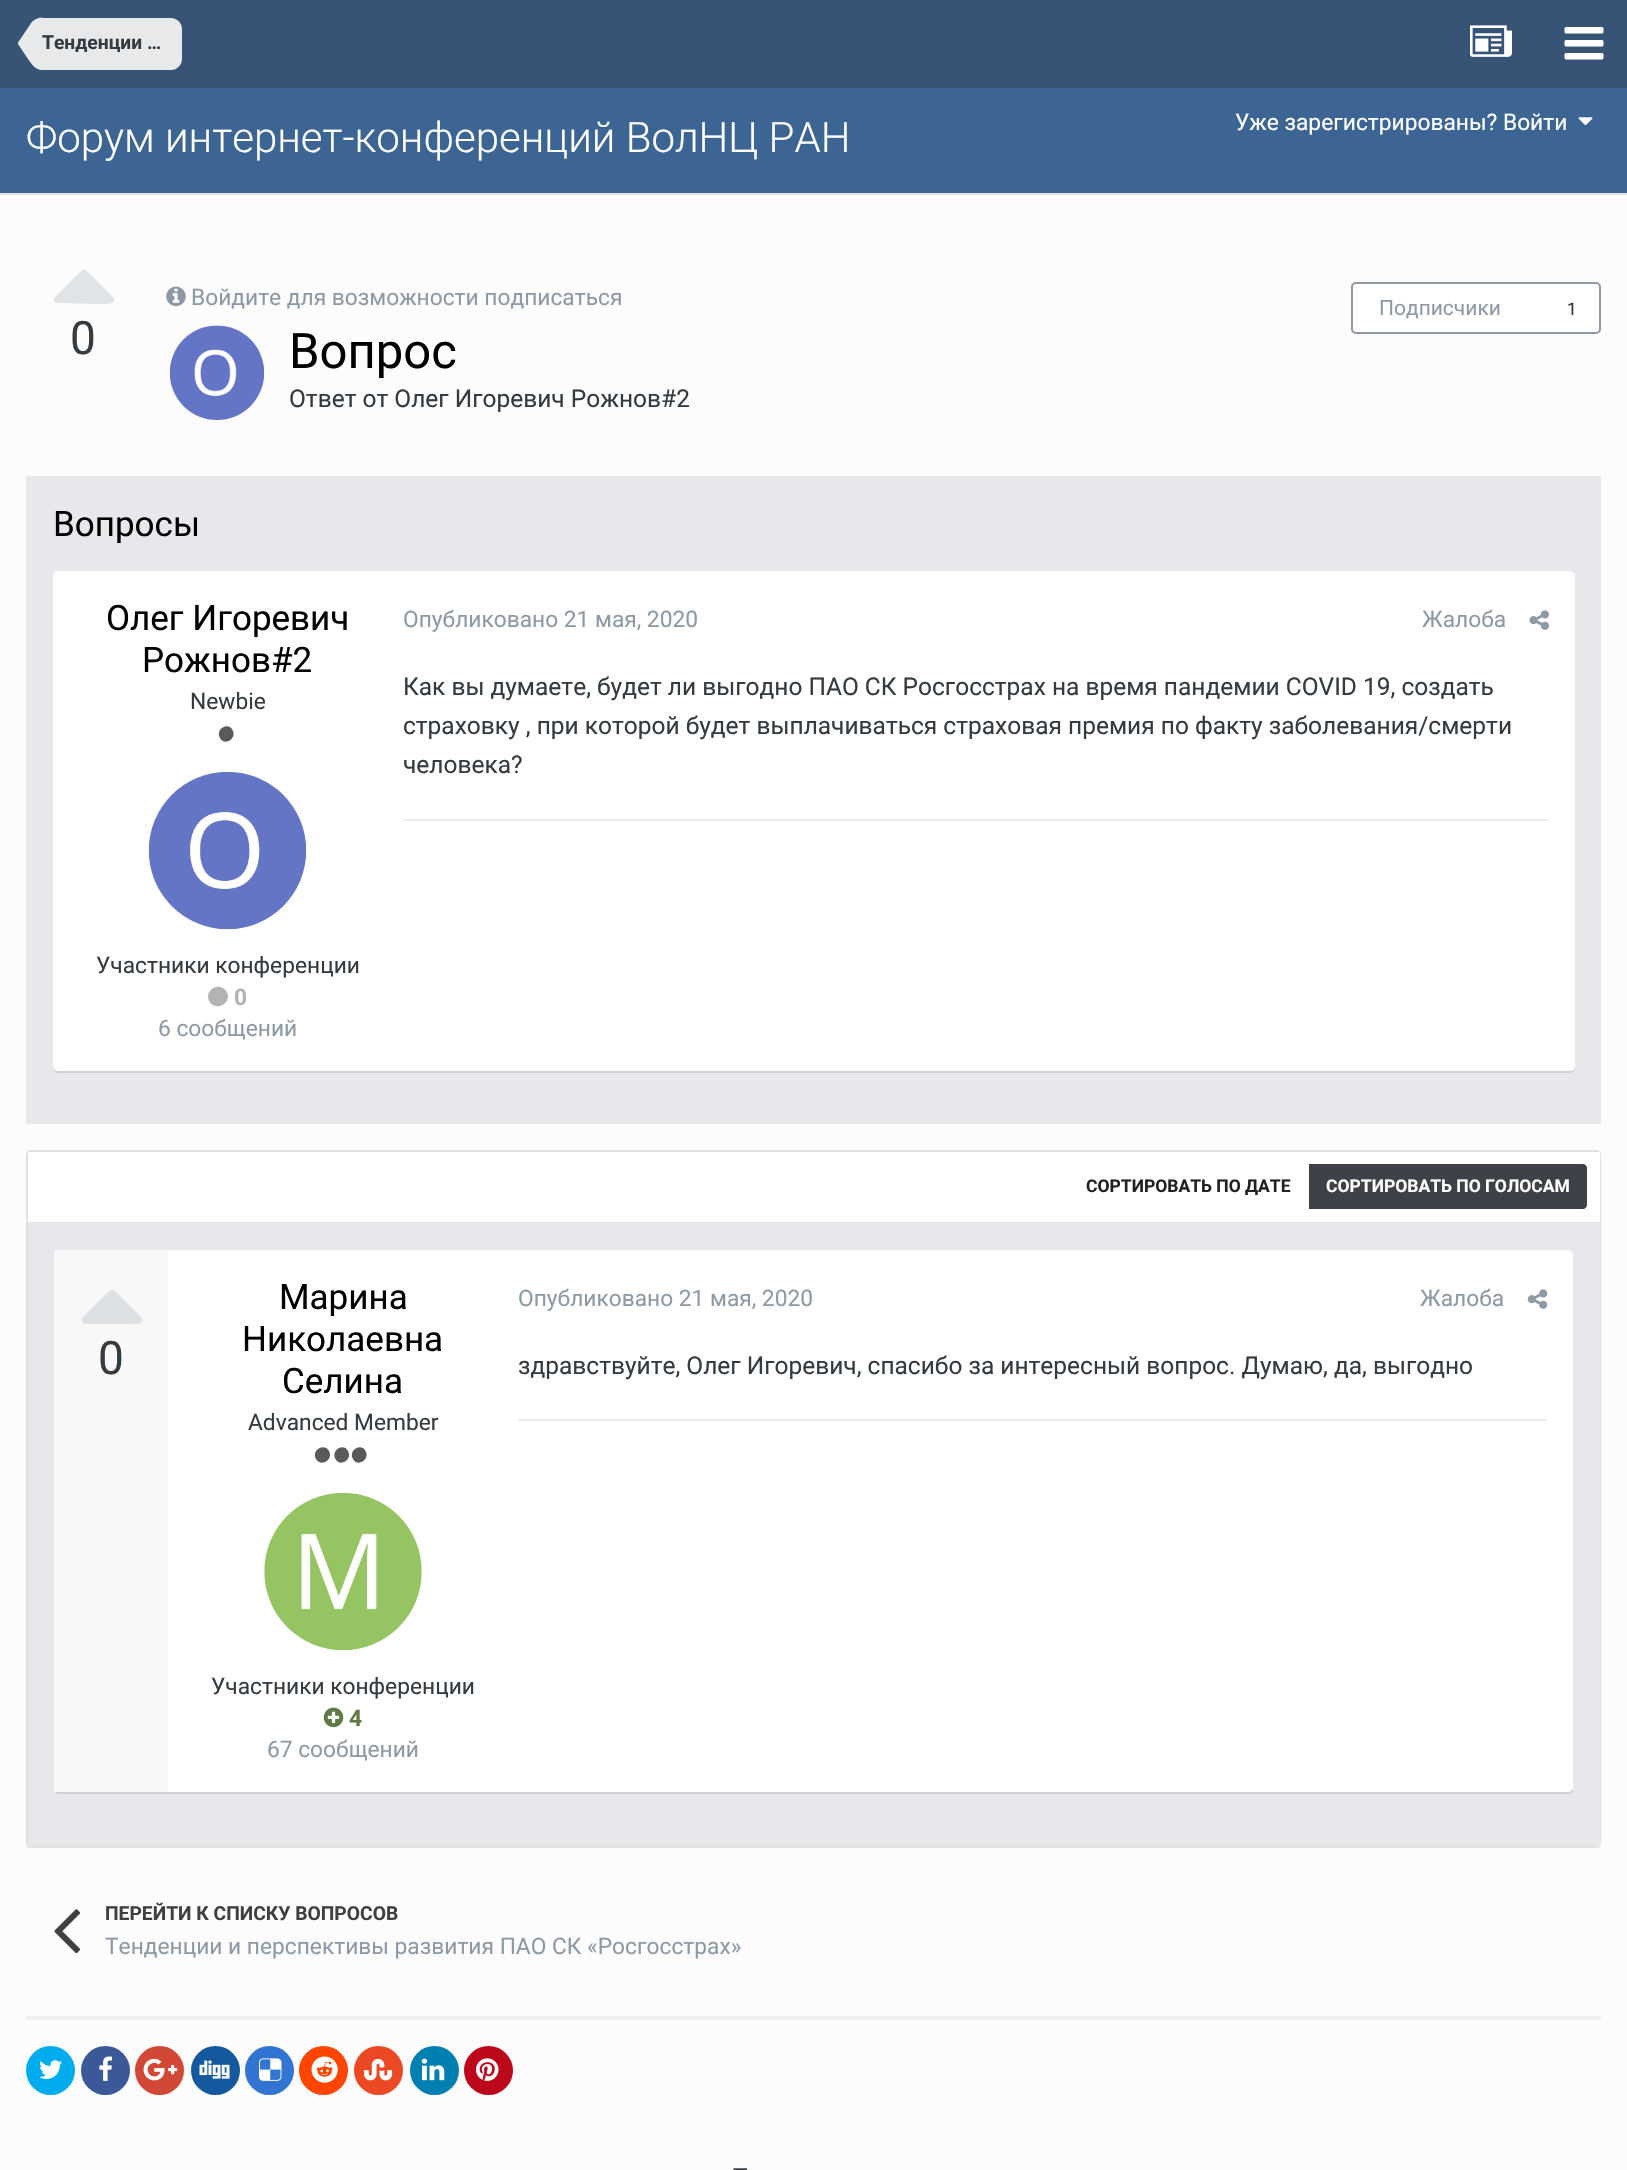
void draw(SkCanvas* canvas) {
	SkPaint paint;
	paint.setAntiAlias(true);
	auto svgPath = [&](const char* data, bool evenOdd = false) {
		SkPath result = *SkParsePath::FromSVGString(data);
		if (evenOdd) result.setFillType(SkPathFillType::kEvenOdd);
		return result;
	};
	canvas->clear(0xfffcfcfc);
	paint.setColor(0xffe3e3e3);
	canvas->drawRect(SkRect::MakeXYWH(0, 193, 1627, 2), paint);
	paint.setColor(0xff375476);
	canvas->drawRect(SkRect::MakeXYWH(0, 0, 1627, 88), paint);
	paint.setColor(0xffe8e9eb);
	canvas->drawPath(svgPath("M42 18H171C177 18 182 23 182 29V59C182 65 177 70 171 70H42Z"), paint);
	canvas->drawPath(svgPath("M18 44H42V70C35.5 70 31.5 64 28 59ZM42 17.5V44H18V42.5L30.5 24C32 22 31.5 22 33 21C35.5 19 39 17.5 42 17.5Z"), paint);
	SkFont f1(fontMgr->matchFamilyStyle("Roboto", SkFontStyle::Bold()), 19.25);
	f1.setSubpixel(true);
	paint.setColor(0xff353c41);
	canvas->drawString("Тенденции …", 42, 49, f1, paint);
	canvas->drawImageRect(SkImages::DeferredFromEncodedData(SkData::MakeFromFileName("img1.png")), SkRect::MakeXYWH(1470, 25, 42, 32), SkSamplingOptions());
	canvas->drawImageRect(SkImages::DeferredFromEncodedData(SkData::MakeFromFileName("img2.png")), SkRect::MakeXYWH(1564, 27, 40, 33), SkSamplingOptions());
	paint.setColor(0xff3d6594);
	canvas->drawRect(SkRect::MakeXYWH(0, 88, 1627, 105), paint);
	SkFont f2(fontMgr->matchFamilyStyle("Roboto", SkFontStyle(300, SkFontStyle::kNormal_Width, SkFontStyle::kUpright_Slant)), 42);
	f2.setSubpixel(true);
	paint.setColor(0xffffffff);
	canvas->drawString("Форум интернет-конференций ВолНЦ РАН", 26, 152, f2, paint);
	SkFont f3(fontMgr->matchFamilyStyle("Roboto", SkFontStyle::Normal()), 22.75);
	f3.setSubpixel(true);
	canvas->drawString("Уже зарегистрированы? Войти", 1235, 130, f3, paint);
	canvas->drawImageRect(SkImages::DeferredFromEncodedData(SkData::MakeFromFileName("img3.png")), SkRect::MakeXYWH(1578, 117, 15, 9), SkSamplingOptions());
	paint.setColor(0xffe0e4e7);
	canvas->drawPath(svgPath("M113 297L114 298C117 305 103 304 102 304L57 303C54 303 53 299 55 297L77 275C85 268 84 268 91 275Z"), paint);
	SkFont f4(fontMgr->matchFamilyStyle("Roboto", SkFontStyle::Normal()), 46);
	f4.setSubpixel(true);
	paint.setColor(0xff353c41);
	canvas->drawString("0", 70, 354, f4, paint);
	canvas->drawImageRect(SkImages::DeferredFromEncodedData(SkData::MakeFromFileName("img4.png")), SkRect::MakeXYWH(166, 286, 20, 21), SkSamplingOptions());
	paint.setColor(0xff8d9aa6);
	canvas->drawString("Войдите для возможности подписаться", 191, 305, f3, paint);
	paint.setColor(0xffffffff);
	canvas->drawRoundRect(SkRect::MakeXYWH(1352, 283, 248, 50), 4, 4, paint);
	paint.setStroke(true);
	paint.setStrokeWidth(2);
	paint.setColor(0xff8d9aa6);
	canvas->drawRoundRect(SkRect::MakeXYWH(1352, 283, 248, 50), 4, 4, paint);
	SkFont f5(fontMgr->matchFamilyStyle("Roboto", SkFontStyle::Normal()), 21);
	f5.setSubpixel(true);
	paint.setStroke(false);
	canvas->drawString("Подписчики", 1379, 315, f5, paint);
	SkFont f6(fontMgr->matchFamilyStyle("Roboto", SkFontStyle::Normal()), 17.5);
	f6.setSubpixel(true);
	paint.setColor(0xff333333);
	canvas->drawString("1", 1567, 315, f6, paint);
	canvas->drawImageRect(SkImages::DeferredFromEncodedData(SkData::MakeFromFileName("img5.png")), SkRect::MakeXYWH(169, 325, 96, 95), SkSamplingOptions());
	SkFont f7(fontMgr->matchFamilyStyle("Roboto", SkFontStyle::Normal()), 49);
	f7.setSubpixel(true);
	paint.setColor(0xff000000);
	canvas->drawString("Вопрос", 289, 368, f7, paint);
	SkFont f8(fontMgr->matchFamilyStyle("Roboto", SkFontStyle::Normal()), 24.5);
	f8.setSubpixel(true);
	paint.setColor(0xff353c41);
	canvas->drawString("Ответ от Олег Игоревич Рожнов#2", 289, 407, f8, paint);
	paint.setColor(0xffe6e8eb);
	canvas->drawRect(SkRect::MakeXYWH(26, 476, 1575, 648), paint);
	SkFont f9(fontMgr->matchFamilyStyle("Roboto", SkFontStyle::Normal()), 35);
	f9.setSubpixel(true);
	paint.setColor(0xff000000);
	canvas->drawString("Вопросы", 53, 536, f9, paint);
	paint.setColor(0xffcfd1d4);
	canvas->drawPath(svgPath("M53 1068V1069C54 1071 56 1073 58 1073H1570C1574 1073 1575 1069 1575 1066C1575 1069 1573 1071 1570 1071H58C56 1071 54 1070 53 1068Z"), paint);
	paint.setColor(0xffffffff);
	canvas->drawRoundRect(SkRect::MakeXYWH(53, 571, 1522, 500), 5, 5, paint);
	paint.setColor(0xff000000);
	canvas->drawString("Олег Игоревич", 106, 630, f9, paint);
	canvas->drawString("Рожнов#2", 142, 672, f9, paint);
	paint.setColor(0xff353c41);
	canvas->drawString("Newbie", 190, 709, f3, paint);
	paint.setColor(0xff5a5a5a);
	canvas->drawPath(svgPath("M232.5 730C237.5 738.5 224.5 746.5 220 738C215 729.5 228 721.5 232.5 730Z"), paint);
	canvas->drawImageRect(SkImages::DeferredFromEncodedData(SkData::MakeFromFileName("img6.png")), SkRect::MakeXYWH(148, 771, 159, 159), SkSamplingOptions());
	paint.setColor(0xff353c41);
	canvas->drawString("Участники конференции", 96, 973, f3, paint);
	paint.setColor(0xffb3b3b3);
	canvas->drawPath(svgPath("M226.5 991.5C233 1002.5 216 1012.5 209.5 1001.5C203 990 220 980.5 226.5 991.5Z"), paint);
	SkFont f10(fontMgr->matchFamilyStyle("Roboto", SkFontStyle::Bold()), 22.75);
	f10.setSubpixel(true);
	canvas->drawString("0", 234, 1005, f10, paint);
	paint.setColor(0xff8d9aa6);
	canvas->drawString("6 сообщений", 158, 1036, f3, paint);
	canvas->drawString("Опубликовано 21 мая, 2020", 403, 627, f3, paint);
	canvas->drawString("Жалоба", 1422, 627, f3, paint);
	canvas->drawImageRect(SkImages::DeferredFromEncodedData(SkData::MakeFromFileName("img7.png")), SkRect::MakeXYWH(1529, 610, 20, 20), SkSamplingOptions());
	paint.setColor(0xff353c41);
	canvas->drawString("Как вы думаете, будет ли выгодно ПАО СК Росгосстрах на время пандемии COVID 19, создать", 403, 695, f8, paint);
	canvas->drawString("страховку , при которой будет выплачиваться страховая премия по факту заболевания/смерти", 403, 734, f8, paint);
	canvas->drawString("человека?", 403, 773, f8, paint);
	paint.setColor(0xffececec);
	canvas->drawRect(SkRect::MakeXYWH(403, 819, 1146, 2), paint);
	paint.setColor(0xffe3e3e3);
	canvas->drawPath(svgPath("M26 1155V1843C26 1846 28 1848 31 1848H1596C1599 1848 1601 1846 1601 1843C1600 1845 1598 1846 1596 1846H32C29 1846 26 1844 26 1841Z"), paint);
	paint.setStroke(true);
	paint.setColor(0xffe0e0e0);
	canvas->drawRoundRect(SkRect::MakeXYWH(27, 1151, 1573, 694), 4, 4, paint);
	paint.setStroke(false);
	paint.setColor(0xffffffff);
	canvas->drawRect(SkRect::MakeXYWH(28, 1152, 1572, 71), paint);
	paint.setColor(0x1a000000);
	canvas->drawRect(SkRect::MakeXYWH(28, 1222, 1572, 1), paint);
	SkFont f11(fontMgr->matchFamilyStyle("Roboto", SkFontStyle::Bold()), 17.5);
	f11.setSubpixel(true);
	paint.setColor(0xff222222);
	canvas->drawString("СОРТИРОВАТЬ ПО ДАТЕ", 1086, 1192, f11, paint);
	paint.setColor(0xff3e4148);
	canvas->drawPath(svgPath("M1309 1164H1583C1585 1164 1587 1166 1587 1168V1205C1587 1207 1585 1209 1583 1209H1309Z"), paint);
	paint.setColor(0xffffffff);
	canvas->drawString("СОРТИРОВАТЬ ПО ГОЛОСАМ", 1326, 1192, f11, paint);
	paint.setColor(0xffe6e8eb);
	canvas->drawRect(SkRect::MakeXYWH(28, 1223, 1572, 622), paint);
	paint.setColor(0xffcfd1d4);
	canvas->drawPath(svgPath("M54 1254V1789C54 1792 56 1794 59 1794H1568C1571 1794 1573 1792 1573 1789V1788C1572 1790 1570 1792 1568 1792H60C57 1792 54 1790 54 1787Z"), paint);
	paint.setColor(0xffffffff);
	canvas->drawRoundRect(SkRect::MakeXYWH(54, 1250, 1519, 542), 5, 5, paint);
	paint.setColor(0xfff8f8f8);
	canvas->drawRect(SkRect::MakeXYWH(54, 1250, 114, 542), paint);
	paint.setColor(0xffdde1e4);
	canvas->drawPath(svgPath("M141 1317L142 1319C145 1326 131 1324 130 1324H85C82 1323 81 1319 83 1317L105 1295C113 1288 112 1288 119 1295Z"), paint);
	paint.setColor(0xff353c41);
	canvas->drawString("0", 98, 1374, f4, paint);
	paint.setColor(0xff000000);
	canvas->drawString("Марина", 279, 1309, f9, paint);
	canvas->drawString("Николаевна", 242, 1351, f9, paint);
	canvas->drawString("Селина", 282, 1393, f9, paint);
	paint.setColor(0xff353c41);
	canvas->drawString("Advanced Member", 248, 1430, f3, paint);
	paint.setColor(0xff5a5a5a);
	canvas->drawPath(svgPath("M329 1451C334 1459.5 321 1467.5 316 1459C311 1450.5 324 1442.5 329 1451ZM348 1451C353 1459.5 340 1467.5 335.5 1459C330.5 1450.5 343.5 1442.5 348 1451ZM365.5 1451C370.5 1459.5 357.5 1467.5 353 1459C348 1450.5 361 1442.5 365.5 1451Z"), paint);
	canvas->drawImageRect(SkImages::DeferredFromEncodedData(SkData::MakeFromFileName("img8.png")), SkRect::MakeXYWH(264, 1492, 158, 159), SkSamplingOptions());
	paint.setColor(0xff353c41);
	canvas->drawString("Участники конференции", 211, 1694, f3, paint);
	canvas->drawImageRect(SkImages::DeferredFromEncodedData(SkData::MakeFromFileName("img9.png")), SkRect::MakeXYWH(323, 1707, 21, 21), SkSamplingOptions());
	paint.setColor(0xff5f7a47);
	canvas->drawString("4", 349, 1726, f10, paint);
	paint.setColor(0xff8d9aa6);
	canvas->drawString("67 сообщений", 267, 1757, f3, paint);
	canvas->drawString("Опубликовано 21 мая, 2020", 518, 1306, f3, paint);
	canvas->drawString("Жалоба", 1420, 1306, f3, paint);
	canvas->drawImageRect(SkImages::DeferredFromEncodedData(SkData::MakeFromFileName("img10.png")), SkRect::MakeXYWH(1527, 1289, 21, 20), SkSamplingOptions());
	paint.setColor(0xff353c41);
	canvas->drawString("здравствуйте, Олег Игоревич, спасибо за интересный вопрос. Думаю, да, выгодно", 518, 1374, f8, paint);
	paint.setColor(0xffececec);
	canvas->drawRect(SkRect::MakeXYWH(518, 1419, 1029, 2), paint);
	canvas->drawImageRect(SkImages::DeferredFromEncodedData(SkData::MakeFromFileName("img11.png")), SkRect::MakeXYWH(54, 1909, 26, 45), SkSamplingOptions());
	paint.setColor(0xff404040);
	canvas->drawString("ПЕРЕЙТИ К СПИСКУ ВОПРОСОВ", 105, 1920, f1, paint);
	paint.setColor(0xff8d9aa6);
	canvas->drawString("Тенденции и перспективы развития ПАО СК «Росгосстрах»", 105, 1954, f3, paint);
	paint.setColor(0xffefefef);
	canvas->drawRect(SkRect::MakeXYWH(26, 2016, 1575, 4), paint);
	paint.setColor(0xff00aced);
	canvas->drawCircle(50.5, 2070.5, 24.5, paint);
	canvas->drawImageRect(SkImages::DeferredFromEncodedData(SkData::MakeFromFileName("img12.png")), SkRect::MakeXYWH(39, 2060, 24, 19), SkSamplingOptions());
	paint.setColor(0xff3b5998);
	canvas->drawCircle(105.5, 2070.5, 24.5, paint);
	canvas->drawImageRect(SkImages::DeferredFromEncodedData(SkData::MakeFromFileName("img13.png")), SkRect::MakeXYWH(99, 2056, 14, 25), SkSamplingOptions());
	paint.setColor(0xffd14836);
	canvas->drawCircle(159.5, 2070.5, 24.5, paint);
	canvas->drawImageRect(SkImages::DeferredFromEncodedData(SkData::MakeFromFileName("img14.png")), SkRect::MakeXYWH(143, 2058, 35, 23), SkSamplingOptions());
	paint.setColor(0xff14589e);
	canvas->drawCircle(215.5, 2070.5, 24.5, paint);
	canvas->drawImageRect(SkImages::DeferredFromEncodedData(SkData::MakeFromFileName("img15.png")), SkRect::MakeXYWH(199, 2060, 31, 19), SkSamplingOptions());
	paint.setColor(0xff3274d1);
	canvas->drawCircle(269.5, 2070.5, 24.5, paint);
	canvas->drawImageRect(SkImages::DeferredFromEncodedData(SkData::MakeFromFileName("img16.png")), SkRect::MakeXYWH(259, 2058, 23, 23), SkSamplingOptions());
	paint.setColor(0xffff4500);
	canvas->drawCircle(323.5, 2070.5, 24.5, paint);
	canvas->drawImageRect(SkImages::DeferredFromEncodedData(SkData::MakeFromFileName("img17.png")), SkRect::MakeXYWH(311, 2056, 27, 27), SkSamplingOptions());
	paint.setColor(0xffeb4924);
	canvas->drawCircle(378.5, 2070.5, 24.5, paint);
	canvas->drawImageRect(SkImages::DeferredFromEncodedData(SkData::MakeFromFileName("img18.png")), SkRect::MakeXYWH(364, 2058, 29, 23), SkSamplingOptions());
	paint.setColor(0xff007fb1);
	canvas->drawCircle(434.5, 2070.5, 24.5, paint);
	canvas->drawImageRect(SkImages::DeferredFromEncodedData(SkData::MakeFromFileName("img19.png")), SkRect::MakeXYWH(421, 2058, 24, 23), SkSamplingOptions());
	paint.setColor(0xffbd081c);
	canvas->drawCircle(488.5, 2070.5, 24.5, paint);
	canvas->drawImageRect(SkImages::DeferredFromEncodedData(SkData::MakeFromFileName("img20.png")), SkRect::MakeXYWH(476, 2058, 23, 23), SkSamplingOptions());
	canvas->drawImageRect(SkImages::DeferredFromEncodedData(SkData::MakeFromFileName("img21.png")), SkRect::MakeXYWH(733, 2168, 15, 2), SkSamplingOptions());
}
